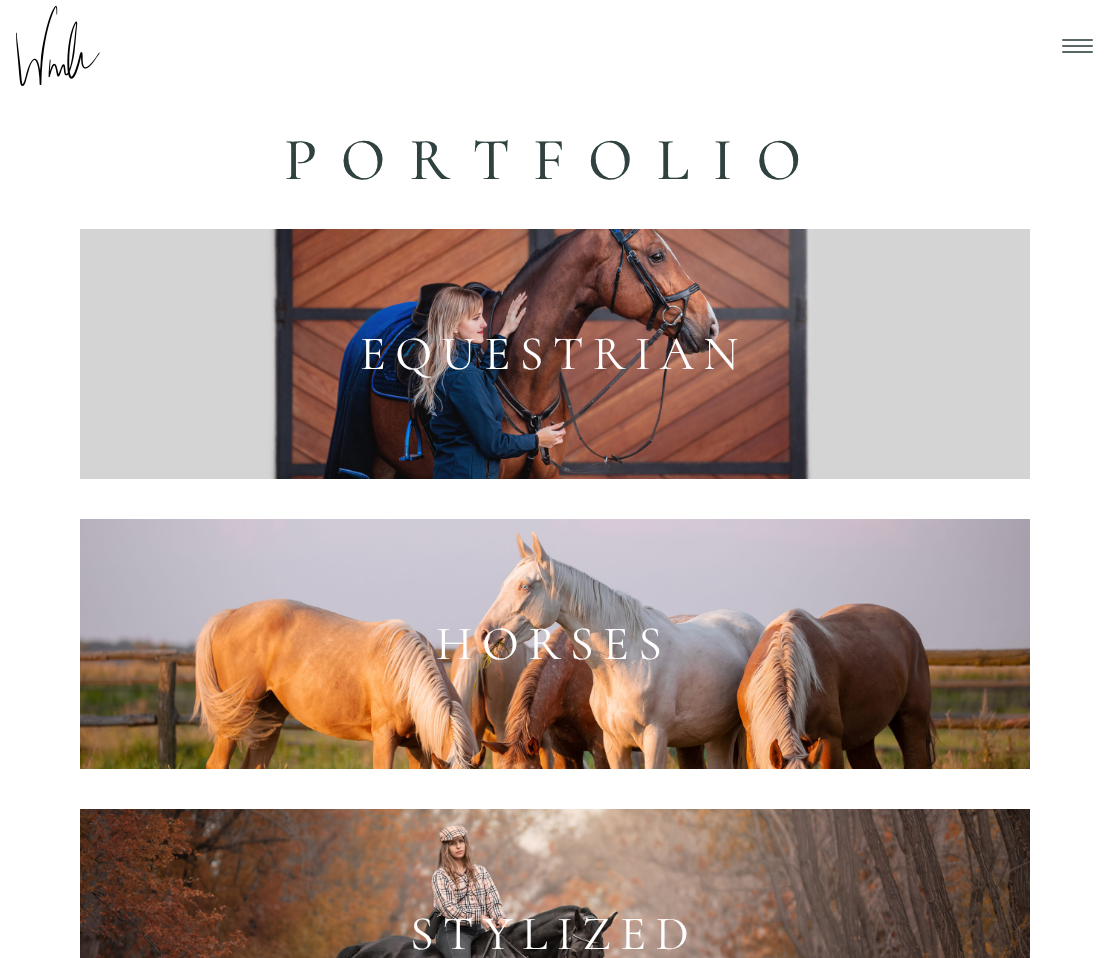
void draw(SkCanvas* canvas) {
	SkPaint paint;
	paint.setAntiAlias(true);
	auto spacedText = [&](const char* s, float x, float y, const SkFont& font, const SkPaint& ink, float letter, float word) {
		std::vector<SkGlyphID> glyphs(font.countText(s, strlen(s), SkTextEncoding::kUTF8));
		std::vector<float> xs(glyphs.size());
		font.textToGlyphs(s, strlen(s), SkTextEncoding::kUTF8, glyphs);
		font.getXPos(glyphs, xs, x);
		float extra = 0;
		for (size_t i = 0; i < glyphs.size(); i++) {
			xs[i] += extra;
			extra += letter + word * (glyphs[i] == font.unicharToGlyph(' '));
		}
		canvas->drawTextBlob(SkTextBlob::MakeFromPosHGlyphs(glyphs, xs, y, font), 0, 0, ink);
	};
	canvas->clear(0xffffffff);
	canvas->drawImageRect(SkImages::DeferredFromEncodedData(SkData::MakeFromFileName("img1.png")), SkRect::MakeXYWH(16, 6, 84, 80), SkSamplingOptions());
	paint.setColor(0xff596866);
	canvas->drawRoundRect(SkRect::MakeXYWH(1062, 39, 31, 2), 1, 1, paint);
	canvas->drawRoundRect(SkRect::MakeXYWH(1062, 45, 31, 2), 1, 1, paint);
	canvas->drawRoundRect(SkRect::MakeXYWH(1062, 51, 31, 2), 1, 1, paint);
	SkFont f1(fontMgr->matchFamilyStyle("Cormorant Upright", SkFontStyle(500, SkFontStyle::kNormal_Width, SkFontStyle::kUpright_Slant)), 60);
	f1.setSubpixel(true);
	paint.setColor(0xff2f4240);
	spacedText("PORTFOLIO", 284, 179, f1, paint, 24, 0);
	canvas->drawImageRect(SkImages::DeferredFromEncodedData(SkData::MakeFromFileName("img2.png")), SkRect::MakeXYWH(80, 229, 950, 250), SkSamplingOptions());
	SkFont f2(fontMgr->matchFamilyStyle("Cormorant", SkFontStyle::Normal()), 48);
	f2.setSubpixel(true);
	paint.setColor(0xffffffff);
	spacedText("EQUESTRIAN", 360, 369, f2, paint, 9.5, 0);
	canvas->drawImageRect(SkImages::DeferredFromEncodedData(SkData::MakeFromFileName("img3.png")), SkRect::MakeXYWH(80, 519, 950, 250), SkSamplingOptions());
	spacedText("HORSES", 436, 659, f2, paint, 9.5, 0);
	canvas->drawImageRect(SkImages::DeferredFromEncodedData(SkData::MakeFromFileName("img4.png")), SkRect::MakeXYWH(80, 809, 950, 149), SkSamplingOptions());
	spacedText("STYLIZED", 410, 949, f2, paint, 9.5, 0);
}
